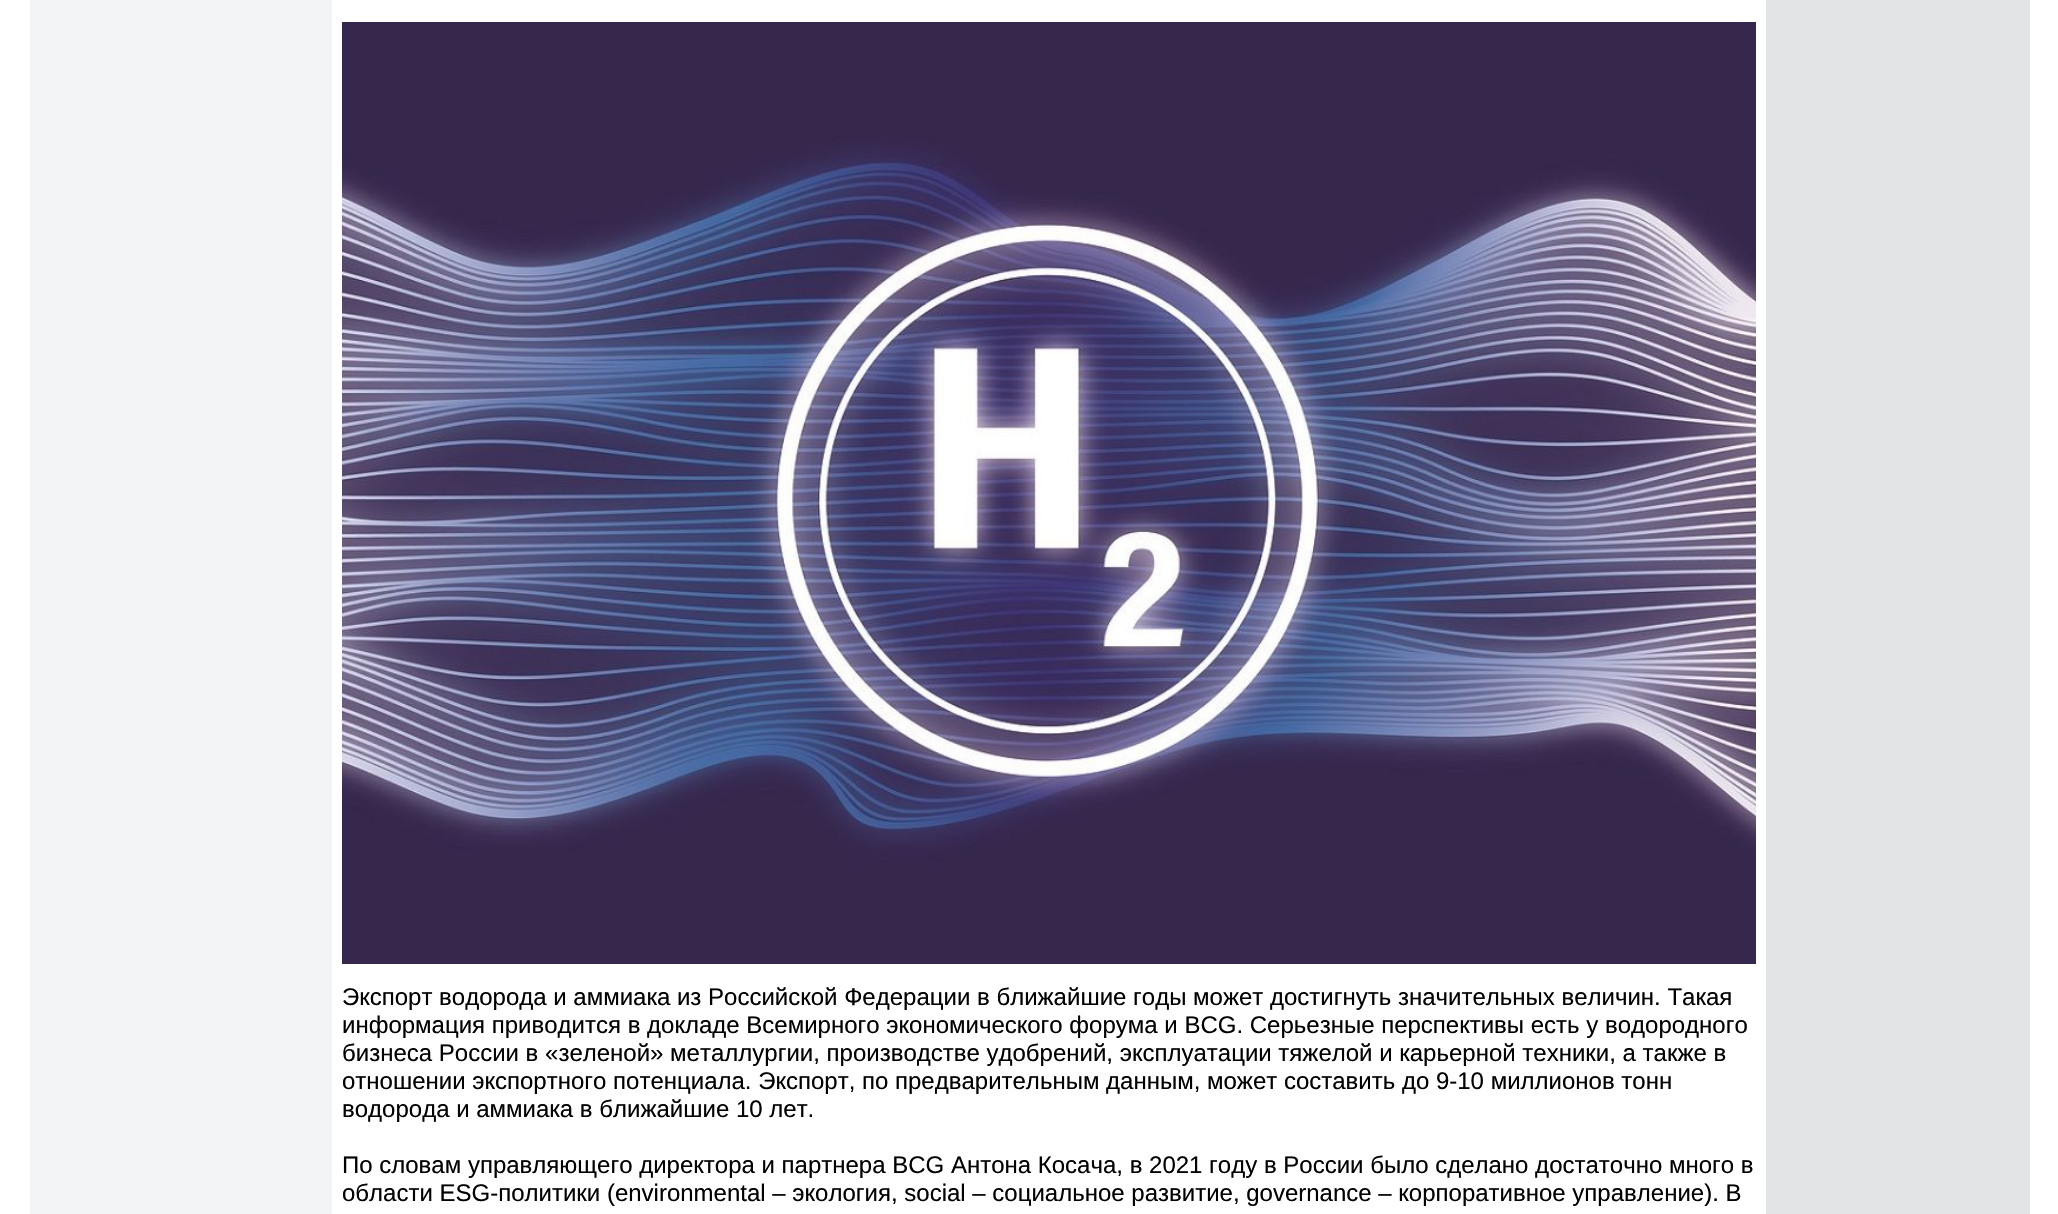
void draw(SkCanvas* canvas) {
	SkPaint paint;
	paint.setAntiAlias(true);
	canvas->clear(0xffffffff);
	paint.setColor(0xfff3f4f5);
	canvas->drawRect(SkRect::MakeXYWH(30, 0, 302, 1214), paint);
	canvas->drawImageRect(SkImages::DeferredFromEncodedData(SkData::MakeFromFileName("img1.png")), SkRect::MakeXYWH(342, 22, 1414, 942), SkSamplingOptions());
	SkFont f1(fontMgr->matchFamilyStyle("Liberation Sans", SkFontStyle::Normal()), 24);
	f1.setSubpixel(true);
	paint.setColor(0xff000000);
	canvas->drawString("Экспорт водорода и аммиака из Российской Федерации в ближайшие годы может достигнуть значительных величин. Такая", 342, 1005, f1, paint);
	canvas->drawString("информация приводится в докладе Всемирного экономического форума и BCG. Серьезные перспективы есть у водородного", 342, 1033, f1, paint);
	canvas->drawString("бизнеса России в «зеленой» металлургии, производстве удобрений, эксплуатации тяжелой и карьерной техники, а также в", 342, 1061, f1, paint);
	canvas->drawString("отношении экспортного потенциала. Экспорт, по предварительным данным, может составить до 9-10 миллионов тонн", 342, 1089, f1, paint);
	canvas->drawString("водорода и аммиака в ближайшие 10 лет.", 342, 1117, f1, paint);
	canvas->drawString("По словам управляющего директора и партнера BCG Антона Косача, в 2021 году в России было сделано достаточно много в", 342, 1173, f1, paint);
	canvas->drawString("области ESG-политики (environmental – экология, social – социальное развитие, governance – корпоративное управление). В", 342, 1201, f1, paint);
	paint.setColor(0xffe3e4e5);
	canvas->drawRect(SkRect::MakeXYWH(1766, 0, 264, 1214), paint);
}
